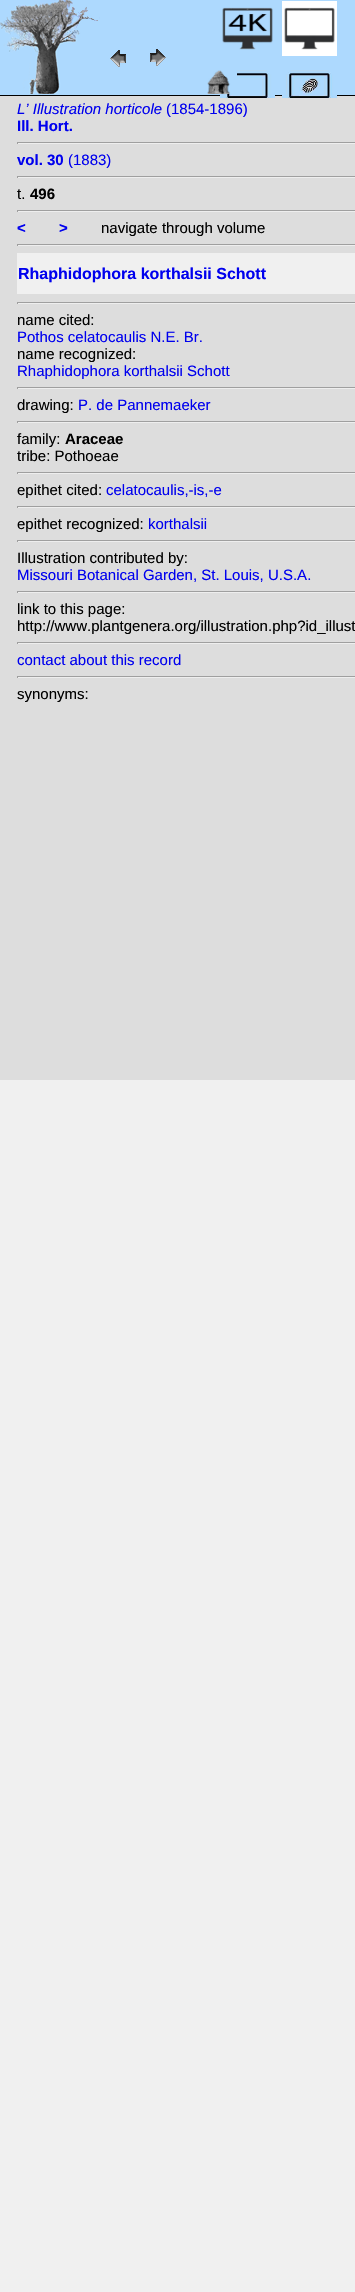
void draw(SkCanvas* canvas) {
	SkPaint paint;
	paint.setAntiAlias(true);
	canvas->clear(0xfff0f0f0);
	paint.setColor(0xffdddddd);
	canvas->drawRect(SkRect::MakeXYWH(0, 96, 355, 984), paint);
	paint.setColor(0xffadd9fe);
	canvas->drawRect(SkRect::MakeXYWH(0, 0, 355, 95), paint);
	paint.setColor(0xff000000);
	canvas->drawRect(SkRect::MakeXYWH(0, 95, 355, 1), paint);
	canvas->drawImageRect(SkImages::DeferredFromEncodedData(SkData::MakeFromFileName("img1.png")), SkRect::MakeXYWH(0, 0, 100, 94), SkSamplingOptions());
	canvas->drawImageRect(SkImages::DeferredFromEncodedData(SkData::MakeFromFileName("img2.png")), SkRect::MakeXYWH(110, 50, 16, 17), SkSamplingOptions());
	canvas->drawImageRect(SkImages::DeferredFromEncodedData(SkData::MakeFromFileName("img3.png")), SkRect::MakeXYWH(150, 49, 16, 17), SkSamplingOptions());
	canvas->drawImageRect(SkImages::DeferredFromEncodedData(SkData::MakeFromFileName("img4.png")), SkRect::MakeXYWH(222, 7, 51, 43), SkSamplingOptions());
	canvas->drawImageRect(SkImages::DeferredFromEncodedData(SkData::MakeFromFileName("img5.png")), SkRect::MakeXYWH(282, 1, 55, 55), SkSamplingOptions());
	canvas->drawImageRect(SkImages::DeferredFromEncodedData(SkData::MakeFromFileName("img6.png")), SkRect::MakeXYWH(220, 70, 55, 28), SkSamplingOptions());
	canvas->drawImageRect(SkImages::DeferredFromEncodedData(SkData::MakeFromFileName("img7.png")), SkRect::MakeXYWH(282, 70, 55, 28), SkSamplingOptions());
	canvas->drawImageRect(SkImages::DeferredFromEncodedData(SkData::MakeFromFileName("img8.png")), SkRect::MakeXYWH(207, 70, 30, 24), SkSamplingOptions());
	SkFont f1(fontMgr->matchFamilyStyle("Liberation Sans", SkFontStyle::Italic()), 15);
	f1.setSubpixel(true);
	paint.setColor(0xff0000ee);
	canvas->drawString("L’ Illustration horticole", 17, 114, f1, paint);
	SkFont f2(fontMgr->matchFamilyStyle("Liberation Sans", SkFontStyle::Normal()), 15);
	f2.setSubpixel(true);
	canvas->drawString("(1854-1896)", 166, 114, f2, paint);
	SkFont f3(fontMgr->matchFamilyStyle("Liberation Sans", SkFontStyle::Bold()), 15);
	f3.setSubpixel(true);
	canvas->drawString("Ill. Hort.", 17, 131, f3, paint);
	paint.setColor(0xff9f9f9f);
	canvas->drawRect(SkRect::MakeXYWH(17, 142, 338, 1), paint);
	paint.setColor(0xffeeeeee);
	canvas->drawRect(SkRect::MakeXYWH(17, 143, 338, 1), paint);
	paint.setColor(0xff9f9f9f);
	canvas->drawRect(SkRect::MakeXYWH(17, 142, 1, 2), paint);
	paint.setColor(0xff0000ee);
	canvas->drawString("vol. 30", 17, 165, f3, paint);
	canvas->drawString("(1883)", 68, 165, f2, paint);
	paint.setColor(0xff9f9f9f);
	canvas->drawRect(SkRect::MakeXYWH(17, 176, 338, 1), paint);
	paint.setColor(0xffeeeeee);
	canvas->drawRect(SkRect::MakeXYWH(17, 177, 338, 1), paint);
	paint.setColor(0xff9f9f9f);
	canvas->drawRect(SkRect::MakeXYWH(17, 176, 1, 2), paint);
	paint.setColor(0xff000000);
	canvas->drawString("t.", 17, 199, f2, paint);
	canvas->drawString("496", 30, 199, f3, paint);
	paint.setColor(0xff9f9f9f);
	canvas->drawRect(SkRect::MakeXYWH(17, 210, 338, 1), paint);
	paint.setColor(0xffeeeeee);
	canvas->drawRect(SkRect::MakeXYWH(17, 211, 338, 1), paint);
	paint.setColor(0xff9f9f9f);
	canvas->drawRect(SkRect::MakeXYWH(17, 210, 1, 2), paint);
	paint.setColor(0xff0000ee);
	canvas->drawString("<", 17, 233, f3, paint);
	canvas->drawString(">", 59, 233, f3, paint);
	paint.setColor(0xff000000);
	canvas->drawString("navigate through volume", 101, 233, f2, paint);
	paint.setColor(0xff9f9f9f);
	canvas->drawRect(SkRect::MakeXYWH(17, 244, 338, 1), paint);
	paint.setColor(0xffeeeeee);
	canvas->drawRect(SkRect::MakeXYWH(17, 245, 338, 1), paint);
	paint.setColor(0xff9f9f9f);
	canvas->drawRect(SkRect::MakeXYWH(17, 244, 1, 2), paint);
	paint.setColor(0xfff0f0f0);
	canvas->drawRect(SkRect::MakeXYWH(17, 253, 338, 41), paint);
	SkFont f4(fontMgr->matchFamilyStyle("Liberation Sans", SkFontStyle::Bold()), 16);
	f4.setSubpixel(true);
	paint.setColor(0xff0000ee);
	canvas->drawString("Rhaphidophora korthalsii Schott", 18, 279, f4, paint);
	paint.setColor(0xff9f9f9f);
	canvas->drawRect(SkRect::MakeXYWH(17, 302, 338, 1), paint);
	paint.setColor(0xffeeeeee);
	canvas->drawRect(SkRect::MakeXYWH(17, 303, 338, 1), paint);
	paint.setColor(0xff9f9f9f);
	canvas->drawRect(SkRect::MakeXYWH(17, 302, 1, 2), paint);
	paint.setColor(0xff000000);
	canvas->drawString("name cited:", 17, 325, f2, paint);
	paint.setColor(0xff0000ee);
	canvas->drawString("Pothos celatocaulis N.E. Br.", 17, 342, f2, paint);
	paint.setColor(0xff000000);
	canvas->drawString("name recognized:", 17, 359, f2, paint);
	paint.setColor(0xff0000ee);
	canvas->drawString("Rhaphidophora korthalsii Schott", 17, 376, f2, paint);
	paint.setColor(0xff9f9f9f);
	canvas->drawRect(SkRect::MakeXYWH(17, 387, 338, 1), paint);
	paint.setColor(0xffeeeeee);
	canvas->drawRect(SkRect::MakeXYWH(17, 388, 338, 1), paint);
	paint.setColor(0xff9f9f9f);
	canvas->drawRect(SkRect::MakeXYWH(17, 387, 1, 2), paint);
	paint.setColor(0xff000000);
	canvas->drawString("drawing:", 17, 410, f2, paint);
	paint.setColor(0xff0000ee);
	canvas->drawString("P. de Pannemaeker", 78, 410, f2, paint);
	paint.setColor(0xff9f9f9f);
	canvas->drawRect(SkRect::MakeXYWH(17, 421, 338, 1), paint);
	paint.setColor(0xffeeeeee);
	canvas->drawRect(SkRect::MakeXYWH(17, 422, 338, 1), paint);
	paint.setColor(0xff9f9f9f);
	canvas->drawRect(SkRect::MakeXYWH(17, 421, 1, 2), paint);
	paint.setColor(0xff000000);
	canvas->drawString("family:", 17, 444, f2, paint);
	canvas->drawString("Araceae", 65, 444, f3, paint);
	canvas->drawString("tribe: Pothoeae", 17, 461, f2, paint);
	paint.setColor(0xff9f9f9f);
	canvas->drawRect(SkRect::MakeXYWH(17, 472, 338, 1), paint);
	paint.setColor(0xffeeeeee);
	canvas->drawRect(SkRect::MakeXYWH(17, 473, 338, 1), paint);
	paint.setColor(0xff9f9f9f);
	canvas->drawRect(SkRect::MakeXYWH(17, 472, 1, 2), paint);
	paint.setColor(0xff000000);
	canvas->drawString("epithet cited:", 17, 495, f2, paint);
	paint.setColor(0xff0000ee);
	canvas->drawString("celatocaulis,-is,-e", 106, 495, f2, paint);
	paint.setColor(0xff9f9f9f);
	canvas->drawRect(SkRect::MakeXYWH(17, 506, 338, 1), paint);
	paint.setColor(0xffeeeeee);
	canvas->drawRect(SkRect::MakeXYWH(17, 507, 338, 1), paint);
	paint.setColor(0xff9f9f9f);
	canvas->drawRect(SkRect::MakeXYWH(17, 506, 1, 2), paint);
	paint.setColor(0xff000000);
	canvas->drawString("epithet recognized:", 17, 529, f2, paint);
	paint.setColor(0xff0000ee);
	canvas->drawString("korthalsii", 148, 529, f2, paint);
	paint.setColor(0xff9f9f9f);
	canvas->drawRect(SkRect::MakeXYWH(17, 540, 338, 1), paint);
	paint.setColor(0xffeeeeee);
	canvas->drawRect(SkRect::MakeXYWH(17, 541, 338, 1), paint);
	paint.setColor(0xff9f9f9f);
	canvas->drawRect(SkRect::MakeXYWH(17, 540, 1, 2), paint);
	paint.setColor(0xff000000);
	canvas->drawString("Illustration contributed by:", 17, 563, f2, paint);
	paint.setColor(0xff0000ee);
	canvas->drawString("Missouri Botanical Garden, St. Louis, U.S.A.", 17, 580, f2, paint);
	paint.setColor(0xff9f9f9f);
	canvas->drawRect(SkRect::MakeXYWH(17, 591, 338, 1), paint);
	paint.setColor(0xffeeeeee);
	canvas->drawRect(SkRect::MakeXYWH(17, 592, 338, 1), paint);
	paint.setColor(0xff9f9f9f);
	canvas->drawRect(SkRect::MakeXYWH(17, 591, 1, 2), paint);
	paint.setColor(0xff000000);
	canvas->drawString("link to this page:", 17, 614, f2, paint);
	canvas->drawString("http://www.plantgenera.org/illustration.php?id_illust", 17, 631, f2, paint);
	paint.setColor(0xff9f9f9f);
	canvas->drawRect(SkRect::MakeXYWH(17, 642, 338, 1), paint);
	paint.setColor(0xffeeeeee);
	canvas->drawRect(SkRect::MakeXYWH(17, 643, 338, 1), paint);
	paint.setColor(0xff9f9f9f);
	canvas->drawRect(SkRect::MakeXYWH(17, 642, 1, 2), paint);
	paint.setColor(0xff0000ee);
	canvas->drawString("contact about this record", 17, 665, f2, paint);
	paint.setColor(0xff9f9f9f);
	canvas->drawRect(SkRect::MakeXYWH(17, 676, 338, 1), paint);
	paint.setColor(0xffeeeeee);
	canvas->drawRect(SkRect::MakeXYWH(17, 677, 338, 1), paint);
	paint.setColor(0xff9f9f9f);
	canvas->drawRect(SkRect::MakeXYWH(17, 676, 1, 2), paint);
	paint.setColor(0xff000000);
	canvas->drawString("synonyms:", 17, 699, f2, paint);
}
